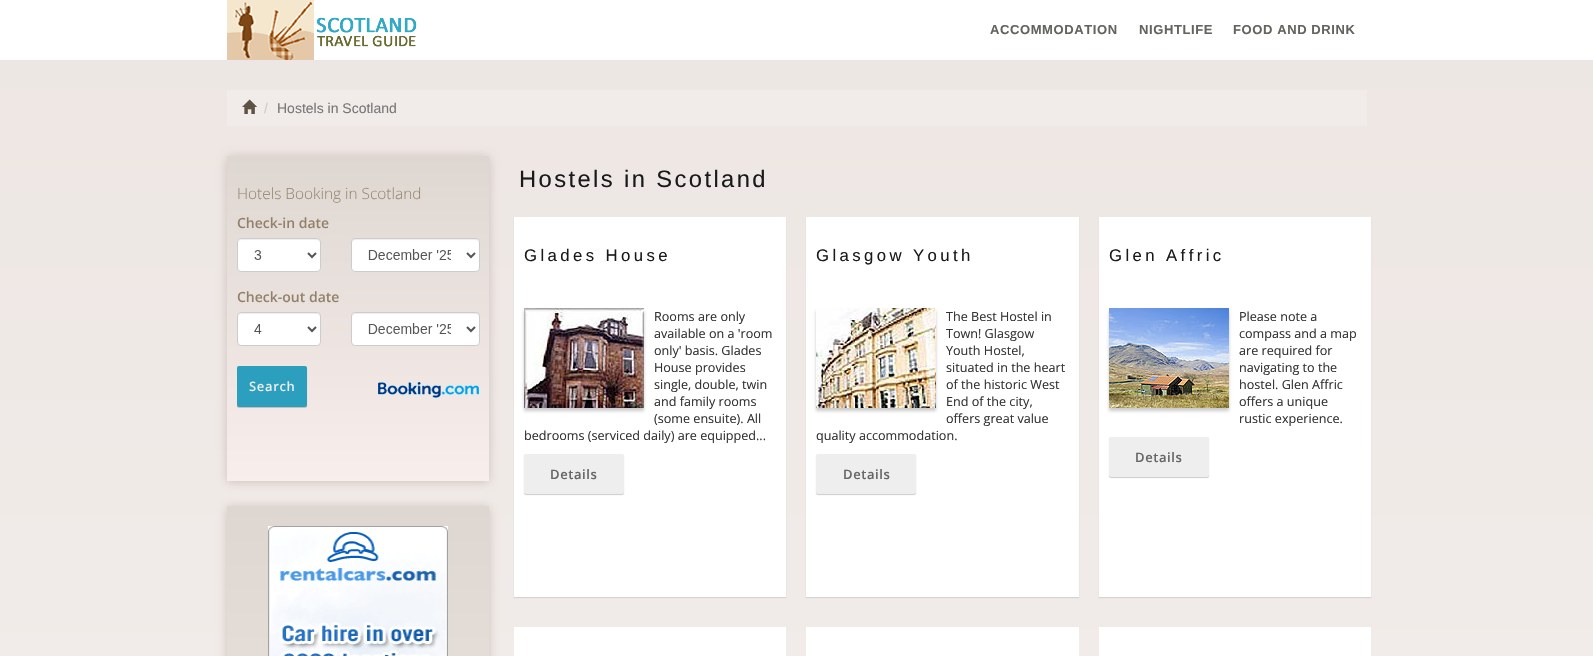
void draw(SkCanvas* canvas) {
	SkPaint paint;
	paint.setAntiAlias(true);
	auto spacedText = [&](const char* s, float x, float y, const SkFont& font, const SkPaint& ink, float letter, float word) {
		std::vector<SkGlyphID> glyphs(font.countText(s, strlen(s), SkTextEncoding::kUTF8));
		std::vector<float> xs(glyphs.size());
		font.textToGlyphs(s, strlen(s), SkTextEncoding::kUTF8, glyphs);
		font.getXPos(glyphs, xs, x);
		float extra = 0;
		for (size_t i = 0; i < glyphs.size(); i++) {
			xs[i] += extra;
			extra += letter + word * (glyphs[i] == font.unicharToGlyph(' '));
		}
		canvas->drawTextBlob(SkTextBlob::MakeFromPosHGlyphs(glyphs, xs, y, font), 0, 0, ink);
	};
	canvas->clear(0xffffffff);
	{
		const SkColor colors[] = {0xffede6e3, 0xffffffff};
		const float stops[] = {0, 1};
		const SkPoint ends[] = {{796, 0}, {797, 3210}};
		paint.setShader(SkGradientShader::MakeLinear(ends, colors, stops, 2, SkTileMode::kClamp));
		paint.setAlpha(255);
	}
	canvas->drawRect(SkRect::MakeXYWH(0, 61, 1593, 595), paint);
	paint.setShader(nullptr);
	paint.setColor(0xffe7e7e7);
	canvas->drawRect(SkRect::MakeXYWH(0, 60, 1593, 1), paint);
	canvas->drawImageRect(SkImages::DeferredFromEncodedData(SkData::MakeFromFileName("img1.png")), SkRect::MakeXYWH(227, 0, 190, 60), SkSamplingOptions());
	SkFont f1(fontMgr->matchFamilyStyle("Liberation Sans", SkFontStyle::Bold()), 13);
	f1.setSubpixel(true);
	paint.setColor(0xff64645e);
	spacedText("ACCOMMODATION", 990, 34, f1, paint, 0.6, 0);
	spacedText("NIGHTLIFE", 1139, 34, f1, paint, 0.6, 0);
	spacedText("FOOD AND DRINK", 1233, 34, f1, paint, 0.6, 0);
	paint.setColor(0xfff1ece9);
	canvas->drawRect(SkRect::MakeXYWH(227, 90, 1140, 36), paint);
	canvas->drawImageRect(SkImages::DeferredFromEncodedData(SkData::MakeFromFileName("img2.png")), SkRect::MakeXYWH(242, 99, 15, 15), SkSamplingOptions());
	SkFont f2(fontMgr->matchFamilyStyle("Liberation Sans", SkFontStyle::Normal()), 14);
	f2.setSubpixel(true);
	paint.setColor(0xffcccccc);
	canvas->drawString("/", 264, 113, f2, paint);
	paint.setColor(0xff777777);
	canvas->drawString("Hostels in Scotland", 277, 113, f2, paint);
	paint.setColor(0xb3beaea6);
	paint.setMaskFilter(SkMaskFilter::MakeBlur(kNormal_SkBlurStyle, 5));
	canvas->drawRect(SkRect::MakeXYWH(227, 157, 262, 325), paint);
	paint.setMaskFilter(nullptr);
	{
		const SkColor colors[] = {0xffded7d1, 0xfff8eeec};
		const float stops[] = {0, 1};
		const SkPoint ends[] = {{358, 156}, {358, 481}};
		paint.setShader(SkGradientShader::MakeLinear(ends, colors, stops, 2, SkTileMode::kClamp));
		paint.setAlpha(255);
	}
	canvas->drawRect(SkRect::MakeXYWH(227, 156, 262, 325), paint);
	canvas->drawImageRect(SkImages::DeferredFromEncodedData(SkData::MakeFromFileName("img3.png")), SkRect::MakeXYWH(237, 187, 243, 221), SkSamplingOptions());
	paint.setShader(nullptr);
	paint.setColor(0xb3beaea6);
	paint.setMaskFilter(SkMaskFilter::MakeBlur(kNormal_SkBlurStyle, 5));
	canvas->drawRect(SkRect::MakeXYWH(227, 507, 262, 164), paint);
	paint.setMaskFilter(nullptr);
	{
		const SkColor colors[] = {0xffded7d1, 0xfff8eeec};
		const float stops[] = {0, 1};
		const SkPoint ends[] = {{358, 506}, {358, 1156}};
		paint.setShader(SkGradientShader::MakeLinear(ends, colors, stops, 2, SkTileMode::kClamp));
		paint.setAlpha(255);
	}
	canvas->drawRect(SkRect::MakeXYWH(227, 506, 262, 150), paint);
	canvas->drawImageRect(SkImages::DeferredFromEncodedData(SkData::MakeFromFileName("img4.png")), SkRect::MakeXYWH(268, 526, 180, 130), SkSamplingOptions());
	SkFont f3(fontMgr->matchFamilyStyle("Liberation Sans", SkFontStyle::Normal()), 23.75);
	f3.setSubpixel(true);
	paint.setShader(nullptr);
	paint.setColor(0xff1a1a1a);
	spacedText("Hostels in Scotland", 519, 187, f3, paint, 2.4, 0);
	paint.setColor(0x1a000000);
	paint.setMaskFilter(SkMaskFilter::MakeBlur(kNormal_SkBlurStyle, 0.5));
	canvas->drawRect(SkRect::MakeXYWH(514, 218, 272, 380), paint);
	paint.setMaskFilter(nullptr);
	paint.setColor(0xffffffff);
	canvas->drawRect(SkRect::MakeXYWH(514, 217, 272, 380), paint);
	SkFont f4(fontMgr->matchFamilyStyle("Liberation Sans", SkFontStyle::Normal()), 16.75);
	f4.setSubpixel(true);
	paint.setColor(0xff1a1a1a);
	spacedText("Glades House", 524, 261, f4, paint, 3.4, 0);
	paint.setColor(0x33000000);
	paint.setMaskFilter(SkMaskFilter::MakeBlur(kNormal_SkBlurStyle, 1.5));
	canvas->drawRect(SkRect::MakeXYWH(524, 311, 120, 100), paint);
	paint.setMaskFilter(nullptr);
	canvas->drawImageRect(SkImages::DeferredFromEncodedData(SkData::MakeFromFileName("img5.png")), SkRect::MakeXYWH(524, 308, 120, 100), SkSamplingOptions());
	SkFont f5(fontMgr->matchFamilyStyle("Open Sans", SkFontStyle::Normal()), 12.6);
	f5.setSubpixel(true);
	paint.setColor(0xff333333);
	canvas->drawString("Rooms are only", 654, 321, f5, paint);
	canvas->drawString("available on a 'room", 654, 338, f5, paint);
	canvas->drawString("only' basis. Glades", 654, 355, f5, paint);
	canvas->drawString("House provides", 654, 372, f5, paint);
	canvas->drawString("single, double, twin", 654, 389, f5, paint);
	canvas->drawString("and family rooms", 654, 406, f5, paint);
	canvas->drawString("(some ensuite). All", 654, 423, f5, paint);
	canvas->drawString("bedrooms (serviced daily) are equipped...", 524, 440, f5, paint);
	paint.setColor(0x33000000);
	paint.setMaskFilter(SkMaskFilter::MakeBlur(kNormal_SkBlurStyle, 0.5));
	canvas->drawRoundRect(SkRect::MakeXYWH(524, 455, 100, 40), 2, 2, paint);
	paint.setMaskFilter(nullptr);
	paint.setColor(0xffeeeeee);
	canvas->drawRoundRect(SkRect::MakeXYWH(524, 454, 100, 40), 2, 2, paint);
	SkFont f6(fontMgr->matchFamilyStyle("Open Sans", SkFontStyle(600, SkFontStyle::kNormal_Width, SkFontStyle::kUpright_Slant)), 13);
	f6.setSubpixel(true);
	paint.setColor(0xff666666);
	spacedText("Details", 550, 479, f6, paint, 0.6, 0);
	paint.setColor(0x1a000000);
	paint.setMaskFilter(SkMaskFilter::MakeBlur(kNormal_SkBlurStyle, 0.5));
	canvas->drawRect(SkRect::MakeXYWH(806, 218, 273, 380), paint);
	paint.setMaskFilter(nullptr);
	paint.setColor(0xffffffff);
	canvas->drawRect(SkRect::MakeXYWH(806, 217, 273, 380), paint);
	paint.setColor(0xff1a1a1a);
	spacedText("Glasgow Youth", 816, 261, f4, paint, 3.4, 0);
	paint.setColor(0x33000000);
	paint.setMaskFilter(SkMaskFilter::MakeBlur(kNormal_SkBlurStyle, 1.5));
	canvas->drawRect(SkRect::MakeXYWH(816, 311, 120, 100), paint);
	paint.setMaskFilter(nullptr);
	canvas->drawImageRect(SkImages::DeferredFromEncodedData(SkData::MakeFromFileName("img6.png")), SkRect::MakeXYWH(816, 308, 120, 100), SkSamplingOptions());
	paint.setColor(0xff333333);
	canvas->drawString("The Best Hostel in", 946, 321, f5, paint);
	canvas->drawString("Town! Glasgow", 946, 338, f5, paint);
	canvas->drawString("Youth Hostel,", 946, 355, f5, paint);
	canvas->drawString("situated in the heart", 946, 372, f5, paint);
	canvas->drawString("of the historic West", 946, 389, f5, paint);
	canvas->drawString("End of the city,", 946, 406, f5, paint);
	canvas->drawString("offers great value", 946, 423, f5, paint);
	canvas->drawString("quality accommodation.", 816, 440, f5, paint);
	paint.setColor(0x33000000);
	paint.setMaskFilter(SkMaskFilter::MakeBlur(kNormal_SkBlurStyle, 0.5));
	canvas->drawRoundRect(SkRect::MakeXYWH(816, 455, 100, 40), 2, 2, paint);
	paint.setMaskFilter(nullptr);
	paint.setColor(0xffeeeeee);
	canvas->drawRoundRect(SkRect::MakeXYWH(816, 454, 100, 40), 2, 2, paint);
	paint.setColor(0xff666666);
	spacedText("Details", 843, 479, f6, paint, 0.6, 0);
	paint.setColor(0x1a000000);
	paint.setMaskFilter(SkMaskFilter::MakeBlur(kNormal_SkBlurStyle, 0.5));
	canvas->drawRect(SkRect::MakeXYWH(1099, 218, 272, 380), paint);
	paint.setMaskFilter(nullptr);
	paint.setColor(0xffffffff);
	canvas->drawRect(SkRect::MakeXYWH(1099, 217, 272, 380), paint);
	paint.setColor(0xff1a1a1a);
	spacedText("Glen Affric", 1109, 261, f4, paint, 3.4, 0);
	paint.setColor(0x33000000);
	paint.setMaskFilter(SkMaskFilter::MakeBlur(kNormal_SkBlurStyle, 1.5));
	canvas->drawRect(SkRect::MakeXYWH(1109, 311, 120, 100), paint);
	paint.setMaskFilter(nullptr);
	canvas->drawImageRect(SkImages::DeferredFromEncodedData(SkData::MakeFromFileName("img7.png")), SkRect::MakeXYWH(1109, 308, 120, 100), SkSamplingOptions());
	paint.setColor(0xff333333);
	canvas->drawString("Please note a", 1239, 321, f5, paint);
	canvas->drawString("compass and a map", 1239, 338, f5, paint);
	canvas->drawString("are required for", 1239, 355, f5, paint);
	canvas->drawString("navigating to the", 1239, 372, f5, paint);
	canvas->drawString("hostel. Glen Affric", 1239, 389, f5, paint);
	canvas->drawString("offers a unique", 1239, 406, f5, paint);
	canvas->drawString("rustic experience.", 1239, 423, f5, paint);
	paint.setColor(0x33000000);
	paint.setMaskFilter(SkMaskFilter::MakeBlur(kNormal_SkBlurStyle, 0.5));
	canvas->drawRoundRect(SkRect::MakeXYWH(1109, 438, 100, 40), 2, 2, paint);
	paint.setMaskFilter(nullptr);
	paint.setColor(0xffeeeeee);
	canvas->drawRoundRect(SkRect::MakeXYWH(1109, 437, 100, 40), 2, 2, paint);
	paint.setColor(0xff666666);
	spacedText("Details", 1135, 462, f6, paint, 0.6, 0);
	paint.setColor(0xffffffff);
	canvas->drawRect(SkRect::MakeXYWH(514, 627, 272, 29), paint);
	canvas->drawRect(SkRect::MakeXYWH(806, 627, 273, 29), paint);
	canvas->drawRect(SkRect::MakeXYWH(1099, 627, 272, 29), paint);
}
